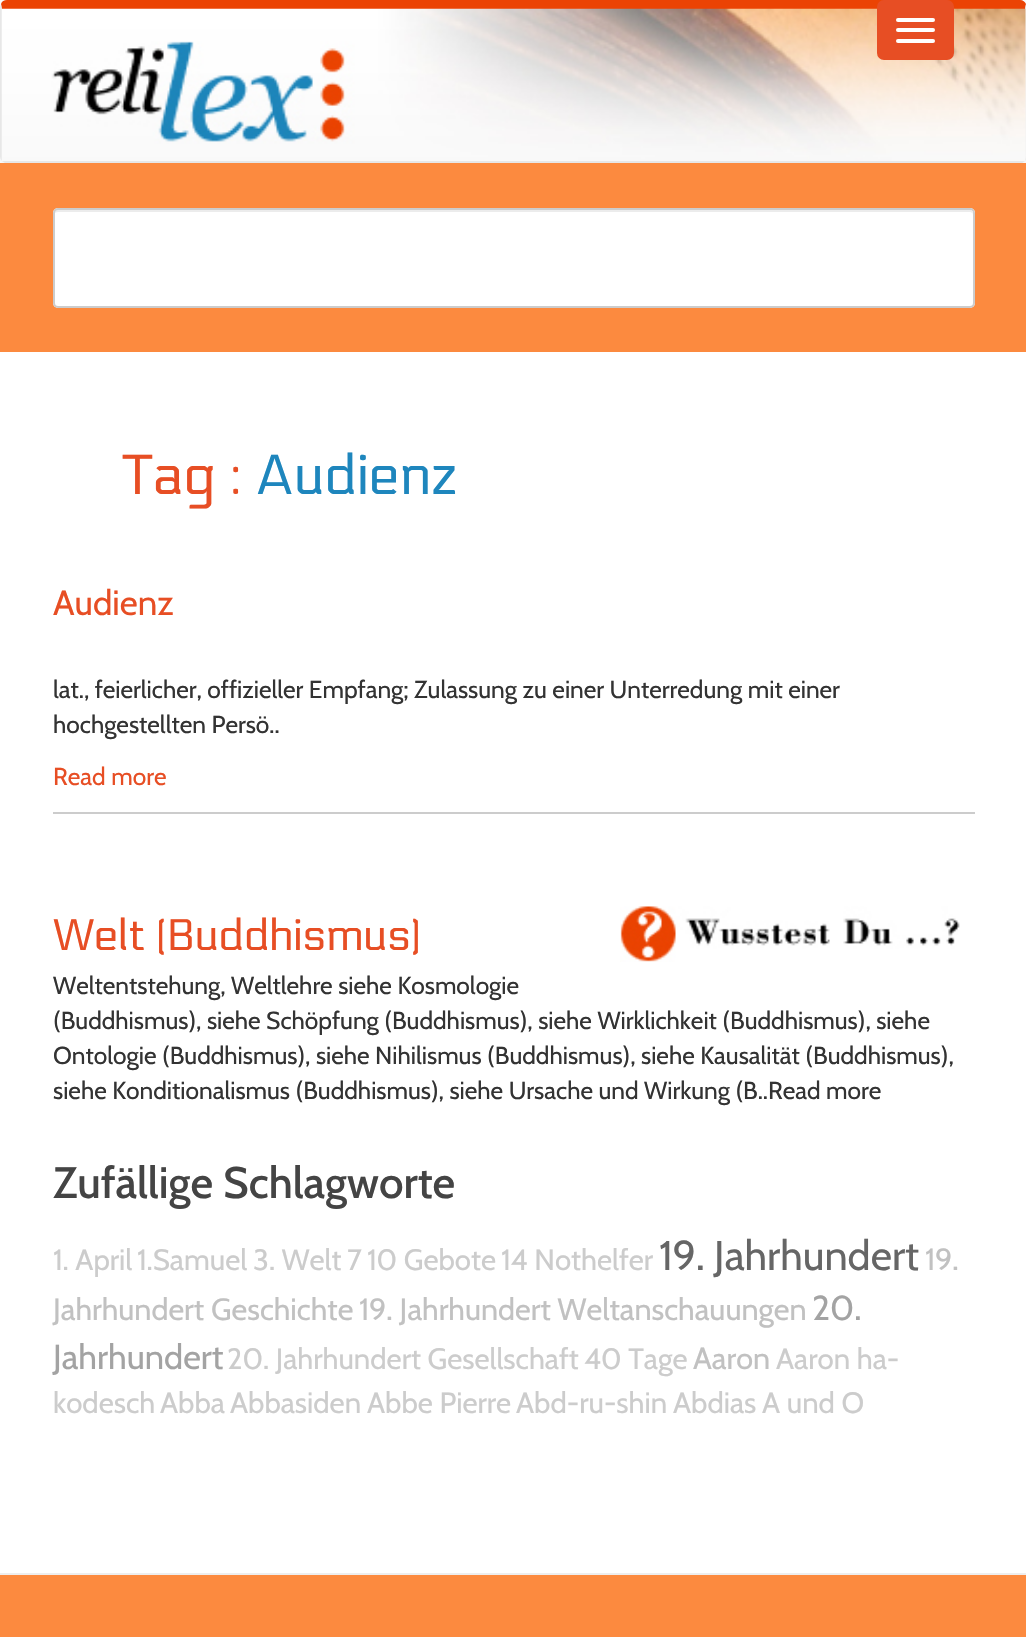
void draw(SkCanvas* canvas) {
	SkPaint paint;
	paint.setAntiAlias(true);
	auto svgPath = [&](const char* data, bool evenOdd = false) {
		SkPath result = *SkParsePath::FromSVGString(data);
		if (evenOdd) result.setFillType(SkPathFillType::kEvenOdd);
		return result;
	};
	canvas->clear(0xffffffff);
	paint.setColor(0x12000000);
	paint.setMaskFilter(SkMaskFilter::MakeBlur(kNormal_SkBlurStyle, 4.5));
	canvas->drawRoundRect(SkRect::MakeXYWH(0, 2, 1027, 163), 7, 7, paint);
	paint.setMaskFilter(nullptr);
	paint.setColor(0xffeb4304);
	canvas->drawPath(svgPath("M7 0C4 0 2 1 1 4L2 10V9H1025L1026 4C1025 2 1023 0 1020 0Z"), paint);
	paint.setColor(0xffe7e7e7);
	canvas->drawPath(svgPath("M1026 4L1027 7V156C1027 158 1026 160 1025 161L1024 160C1025 159 1026 158 1026 156V9H1025Z"), paint);
	canvas->drawPath(svgPath("M5 163L2 161L3 159C4 160 5 161 7 161H1020C1022 161 1023 160 1024 160L1025 161L1022 163Z"), paint);
	canvas->drawPath(svgPath("M0 7V156C0 158 1 160 2 161L3 159C2 159 2 157 2 156V10L1 4Z"), paint);
	canvas->drawImageRect(SkImages::DeferredFromEncodedData(SkData::MakeFromFileName("img1.png")), SkRect::MakeXYWH(1, 8, 1025, 153), SkSamplingOptions());
	paint.setColor(0xffe74e24);
	canvas->drawRoundRect(SkRect::MakeXYWH(878, 1, 75, 58), 6, 6, paint);
	paint.setStroke(true);
	paint.setStrokeWidth(2);
	canvas->drawRoundRect(SkRect::MakeXYWH(878, 1, 75, 58), 6, 6, paint);
	paint.setStroke(false);
	paint.setColor(0xffffffff);
	canvas->drawRoundRect(SkRect::MakeXYWH(896, 18, 39, 4), 2, 2, paint);
	canvas->drawRoundRect(SkRect::MakeXYWH(896, 28, 39, 4), 2, 2, paint);
	canvas->drawRoundRect(SkRect::MakeXYWH(896, 39, 39, 4), 2, 2, paint);
	paint.setColor(0xfffc8a3f);
	canvas->drawRect(SkRect::MakeXYWH(0, 163, 1026, 189), paint);
	paint.setColor(0xfffc9652);
	canvas->drawPath(svgPath("M53 210V212H975V208V210Z"), paint);
	paint.setColor(0xffffffff);
	canvas->drawRoundRect(SkRect::MakeXYWH(53, 208, 922, 100), 5, 5, paint);
	paint.setColor(0xffececec);
	canvas->drawPath(svgPath("M58 212H970C971 212 973 213 973 215C973 212 972 210 969 210H58C55 210 54 212 54 215C54 213 56 212 58 212Z"), paint);
	paint.setStroke(true);
	paint.setColor(0xffcccccc);
	canvas->drawRoundRect(SkRect::MakeXYWH(54, 209, 920, 98), 4, 4, paint);
	SkFont f1(fontMgr->matchFamilyStyle("Electrolize", SkFontStyle::Normal()), 56);
	f1.setSubpixel(true);
	paint.setStroke(false);
	paint.setColor(0xffe74e24);
	canvas->drawString("Tag :", 123, 494, f1, paint);
	paint.setColor(0xff1e86bd);
	canvas->drawString("Audienz", 255, 494, f1, paint);
	paint.setColor(0xffcccccc);
	canvas->drawRect(SkRect::MakeXYWH(53, 812, 922, 2), paint);
	SkFont f2(fontMgr->matchFamilyStyle("Cabin", SkFontStyle::Normal()), 35);
	f2.setSubpixel(true);
	paint.setColor(0xffe74e24);
	canvas->drawString("Audienz", 53, 615, f2, paint);
	SkFont f3(fontMgr->matchFamilyStyle("Cabin", SkFontStyle::Normal()), 24.5);
	f3.setSubpixel(true);
	paint.setColor(0xff333333);
	canvas->drawString("lat., feierlicher, offizieller Empfang; Zulassung zu einer Unterredung mit einer", 53, 698, f3, paint);
	canvas->drawString("hochgestellten Persö..", 53, 733, f3, paint);
	paint.setColor(0xffe74e24);
	canvas->drawString("Read more", 53, 785, f3, paint);
	canvas->drawImageRect(SkImages::DeferredFromEncodedData(SkData::MakeFromFileName("img2.png")), SkRect::MakeXYWH(620, 906, 340, 56), SkSamplingOptions());
	SkFont f4(fontMgr->matchFamilyStyle("Electrolize", SkFontStyle::Normal()), 44);
	f4.setSubpixel(true);
	canvas->drawString("Welt (Buddhismus)", 53, 950, f4, paint);
	paint.setColor(0xff333333);
	canvas->drawString("Weltentstehung, Weltlehre siehe Kosmologie", 53, 994, f3, paint);
	canvas->drawString("(Buddhismus), siehe Schöpfung (Buddhismus), siehe Wirklichkeit (Buddhismus), siehe", 53, 1029, f3, paint);
	canvas->drawString("Ontologie (Buddhismus), siehe Nihilismus (Buddhismus), siehe Kausalität (Buddhismus),", 53, 1064, f3, paint);
	canvas->drawString("siehe Konditionalismus (Buddhismus), siehe Ursache und Wirkung (B..Read more", 53, 1099, f3, paint);
	SkFont f5(fontMgr->matchFamilyStyle("Cabin", SkFontStyle(500, SkFontStyle::kNormal_Width, SkFontStyle::kUpright_Slant)), 44);
	f5.setSubpixel(true);
	paint.setColor(0xff444444);
	canvas->drawString("Zufällige Schlagworte", 53, 1198, f5, paint);
	SkFont f6(fontMgr->matchFamilyStyle("Cabin", SkFontStyle::Normal()), 29.4);
	f6.setSubpixel(true);
	paint.setColor(0xffcccccc);
	canvas->drawString("1. April", 53, 1270, f6, paint);
	canvas->drawString("1.Samuel", 137, 1270, f6, paint);
	canvas->drawString("3. Welt", 253, 1270, f6, paint);
	canvas->drawString("7", 347, 1270, f6, paint);
	canvas->drawString("10 Gebote", 367, 1270, f6, paint);
	canvas->drawString("14 Nothelfer", 501, 1270, f6, paint);
	SkFont f7(fontMgr->matchFamilyStyle("Cabin", SkFontStyle::Normal()), 41.5);
	f7.setSubpixel(true);
	paint.setColor(0xff666666);
	canvas->drawString("19. Jahrhundert", 659, 1270, f7, paint);
	SkFont f8(fontMgr->matchFamilyStyle("Cabin", SkFontStyle::Normal()), 30.6);
	f8.setSubpixel(true);
	paint.setColor(0xffc1c1c1);
	canvas->drawString("19.", 925, 1270, f8, paint);
	canvas->drawString("Jahrhundert Geschichte", 53, 1320, f8, paint);
	canvas->drawString("19. Jahrhundert Weltanschauungen", 359, 1320, f8, paint);
	SkFont f9(fontMgr->matchFamilyStyle("Cabin", SkFontStyle::Normal()), 34.5);
	f9.setSubpixel(true);
	paint.setColor(0xffa3a3a3);
	canvas->drawString("20.", 812, 1320, f9, paint);
	canvas->drawString("Jahrhundert", 53, 1369, f9, paint);
	paint.setColor(0xffcccccc);
	canvas->drawString("20. Jahrhundert Gesellschaft", 227, 1369, f6, paint);
	canvas->drawString("40 Tage", 584, 1369, f6, paint);
	paint.setColor(0xffc1c1c1);
	canvas->drawString("Aaron", 693, 1369, f8, paint);
	paint.setColor(0xffcccccc);
	canvas->drawString("Aaron ha-", 776, 1369, f6, paint);
	canvas->drawString("kodesch", 53, 1413, f6, paint);
	canvas->drawString("Abba", 160, 1413, f6, paint);
	canvas->drawString("Abbasiden", 230, 1413, f6, paint);
	canvas->drawString("Abbe Pierre", 367, 1413, f6, paint);
	canvas->drawString("Abd-ru-shin", 516, 1413, f6, paint);
	canvas->drawString("Abdias", 673, 1413, f6, paint);
	canvas->drawString("A und O", 762, 1413, f6, paint);
	paint.setColor(0xffeeeeee);
	canvas->drawRect(SkRect::MakeXYWH(0, 1573, 1026, 2), paint);
	paint.setColor(0xfffc8a3f);
	canvas->drawRect(SkRect::MakeXYWH(0, 1575, 1026, 62), paint);
}
